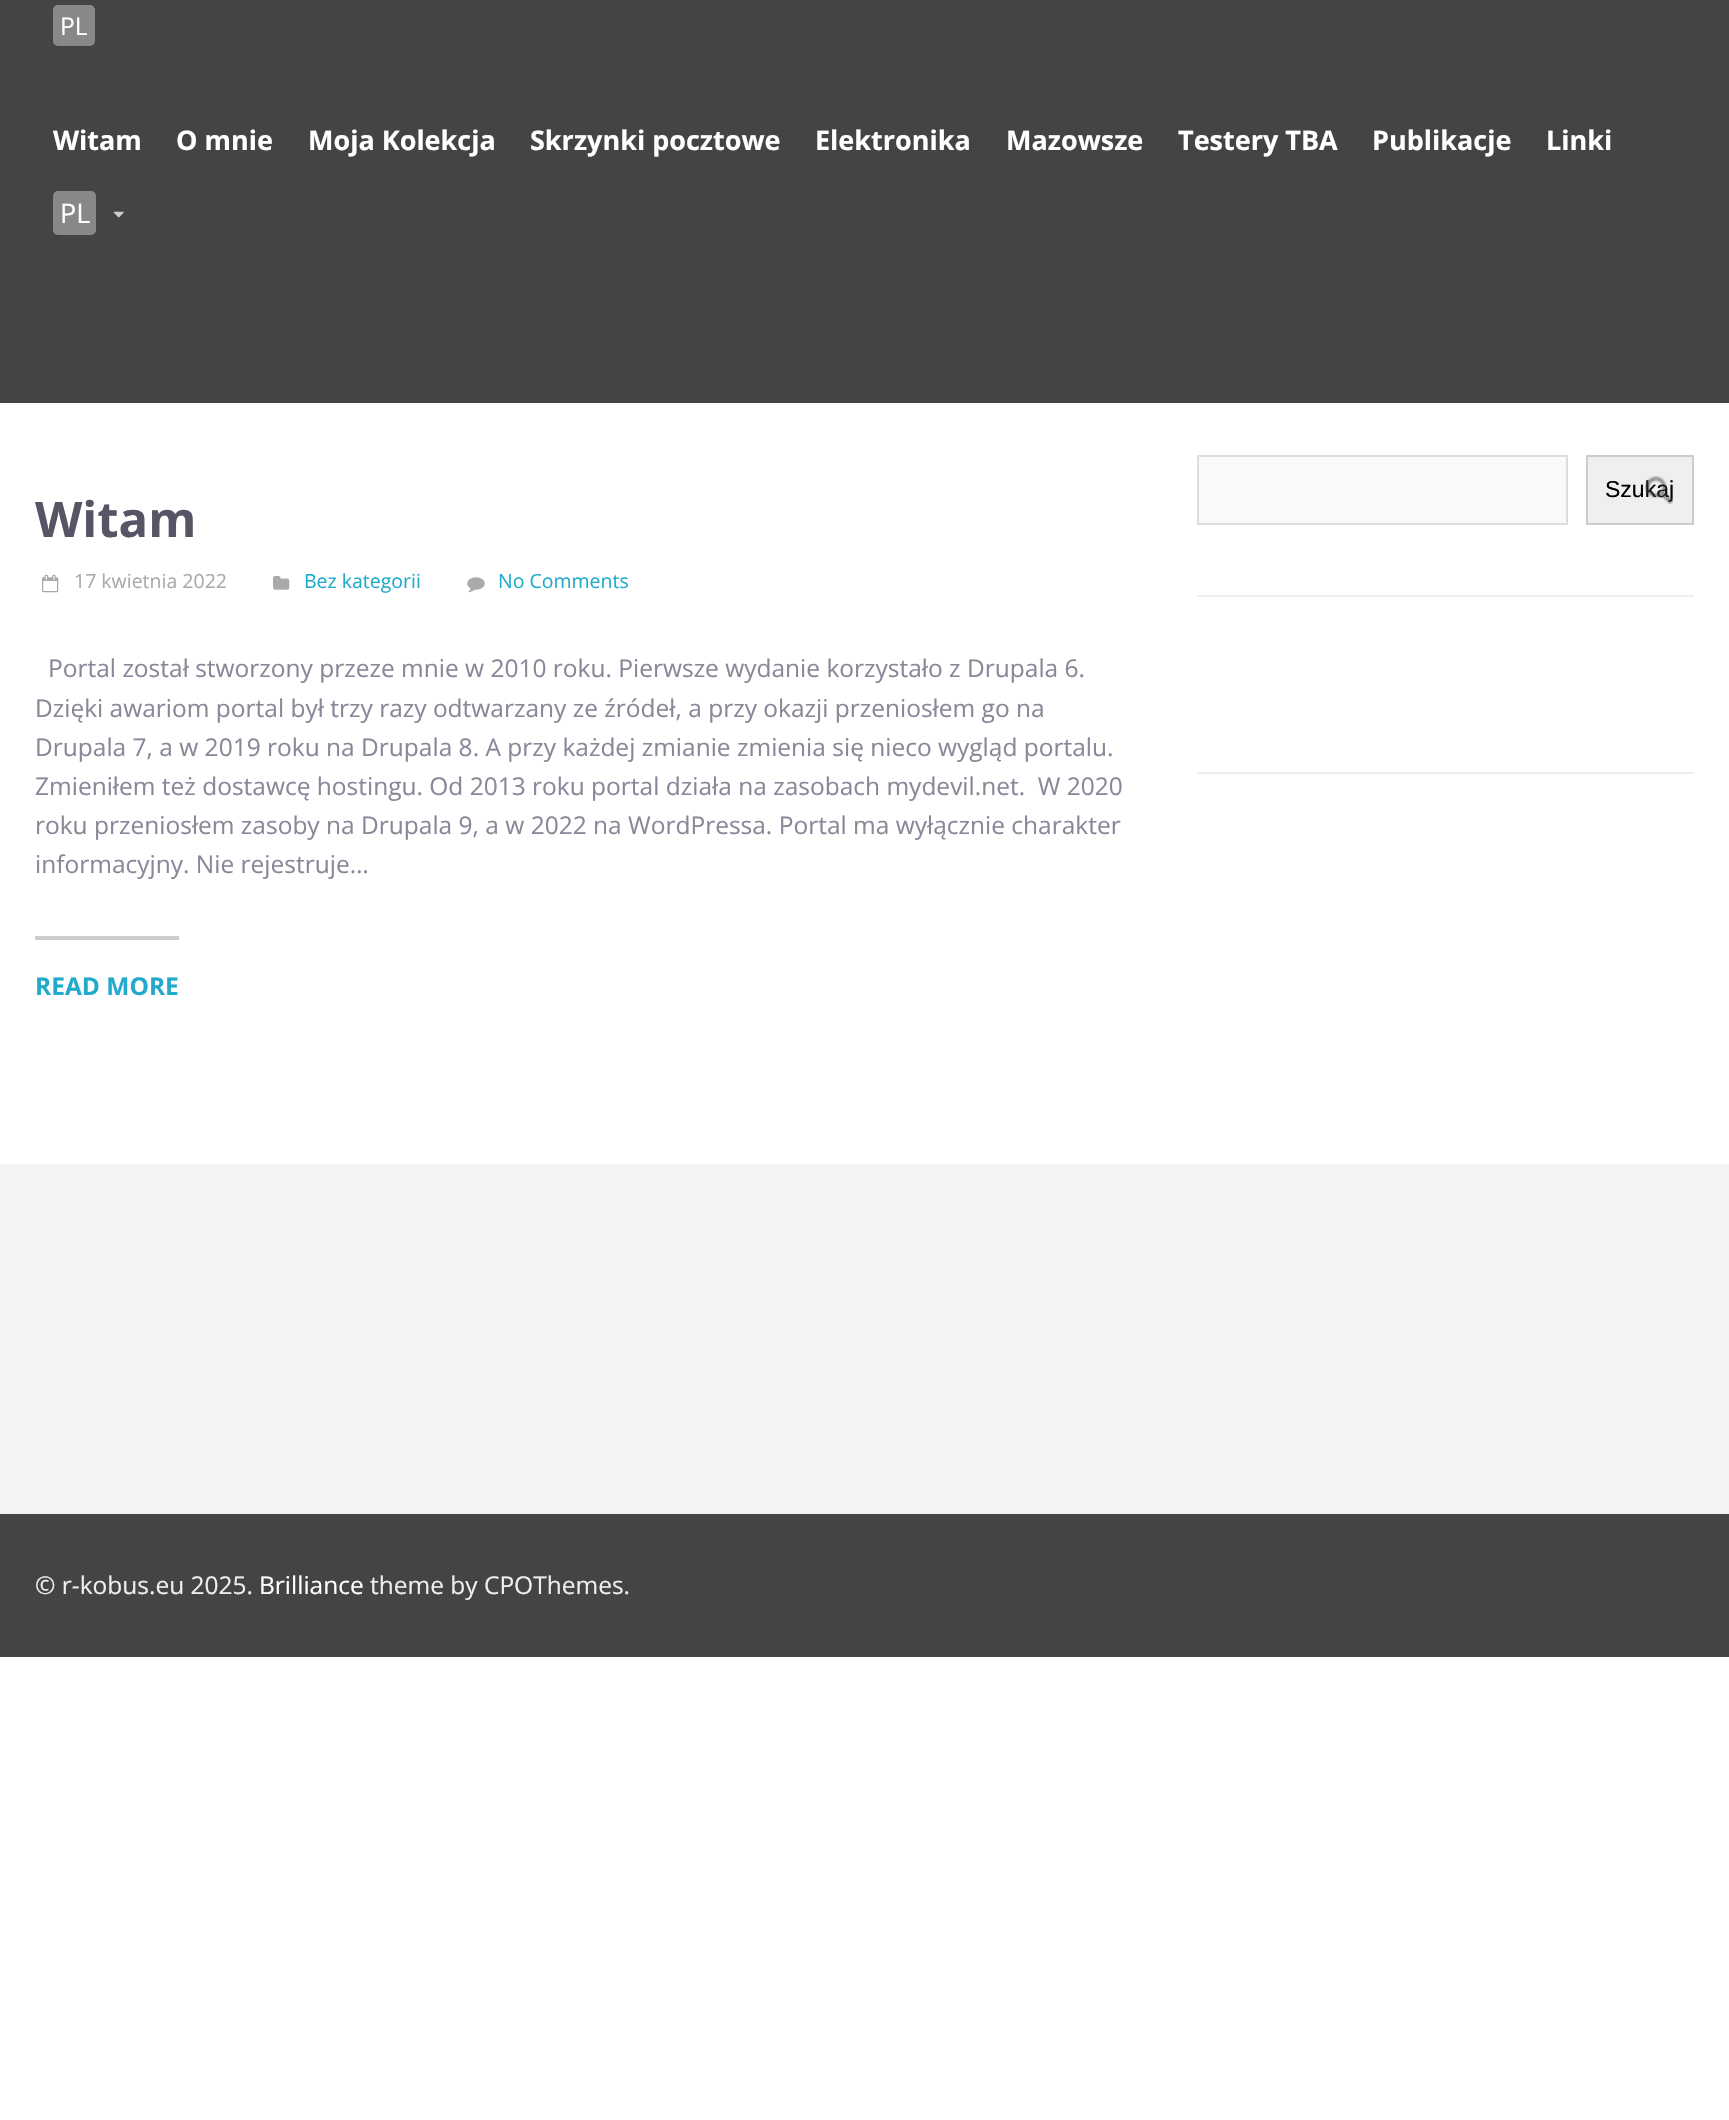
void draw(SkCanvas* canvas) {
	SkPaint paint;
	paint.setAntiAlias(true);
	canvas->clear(0xffffffff);
	paint.setColor(0xff444444);
	canvas->drawRect(SkRect::MakeXYWH(0, 0, 1729, 403), paint);
	paint.setColor(0xff888888);
	canvas->drawRoundRect(SkRect::MakeXYWH(53, 5, 42, 41), 5, 5, paint);
	SkFont f1(fontMgr->matchFamilyStyle("Open Sans", SkFontStyle::Normal()), 24.5);
	f1.setSubpixel(true);
	paint.setColor(0xffffffff);
	canvas->drawString("PL", 60, 35, f1, paint);
	SkFont f2(fontMgr->matchFamilyStyle("Open Sans", SkFontStyle::Bold()), 27);
	f2.setSubpixel(true);
	canvas->drawString("Witam", 53, 150, f2, paint);
	canvas->drawString("O mnie", 176, 150, f2, paint);
	canvas->drawString("Moja Kolekcja", 308, 150, f2, paint);
	canvas->drawString("Skrzynki pocztowe", 530, 150, f2, paint);
	canvas->drawString("Elektronika", 815, 150, f2, paint);
	canvas->drawString("Mazowsze", 1006, 150, f2, paint);
	canvas->drawString("Testery TBA", 1178, 150, f2, paint);
	canvas->drawString("Publikacje", 1372, 150, f2, paint);
	canvas->drawString("Linki", 1546, 150, f2, paint);
	paint.setColor(0xff888888);
	canvas->drawRoundRect(SkRect::MakeXYWH(53, 191, 43, 44), 5, 5, paint);
	SkFont f3(fontMgr->matchFamilyStyle("Open Sans", SkFontStyle::Normal()), 27);
	f3.setSubpixel(true);
	paint.setColor(0xffffffff);
	canvas->drawString("PL", 60, 223, f3, paint);
	canvas->drawImageRect(SkImages::DeferredFromEncodedData(SkData::MakeFromFileName("img1.png")), SkRect::MakeXYWH(113, 211, 11, 7), SkSamplingOptions());
	paint.setColor(0xffefefef);
	canvas->drawRect(SkRect::MakeXYWH(1587, 456, 106, 68), paint);
	paint.setStroke(true);
	paint.setStrokeWidth(2);
	paint.setColor(0xffcccccc);
	canvas->drawRect(SkRect::MakeXYWH(1587, 456, 106, 68), paint);
	SkFont f4(fontMgr->matchFamilyStyle("Liberation Sans", SkFontStyle::Normal()), 23);
	f4.setSubpixel(true);
	paint.setStroke(false);
	paint.setColor(0xff000000);
	canvas->drawString("Szukaj", 1605, 497, f4, paint);
	canvas->drawImageRect(SkImages::DeferredFromEncodedData(SkData::MakeFromFileName("img2.png")), SkRect::MakeXYWH(1645, 476, 28, 28), SkSamplingOptions());
	paint.setColor(0xfff9f9f9);
	canvas->drawRect(SkRect::MakeXYWH(1198, 456, 369, 68), paint);
	paint.setStroke(true);
	paint.setColor(0xffdddddd);
	canvas->drawRect(SkRect::MakeXYWH(1198, 456, 369, 68), paint);
	paint.setStroke(false);
	paint.setColor(0xffeeeeee);
	canvas->drawRect(SkRect::MakeXYWH(1197, 595, 497, 2), paint);
	canvas->drawRect(SkRect::MakeXYWH(1197, 772, 497, 2), paint);
	SkFont f5(fontMgr->matchFamilyStyle("Open Sans", SkFontStyle::Bold()), 49);
	f5.setSubpixel(true);
	paint.setColor(0xff555566);
	canvas->drawString("Witam", 35, 537, f5, paint);
	canvas->drawImageRect(SkImages::DeferredFromEncodedData(SkData::MakeFromFileName("img3.png")), SkRect::MakeXYWH(42, 574, 17, 19), SkSamplingOptions());
	SkFont f6(fontMgr->matchFamilyStyle("Open Sans", SkFontStyle::Normal()), 19.5);
	f6.setSubpixel(true);
	paint.setColor(0xffaaaaaa);
	canvas->drawString("17 kwietnia 2022", 74, 588, f6, paint);
	canvas->drawImageRect(SkImages::DeferredFromEncodedData(SkData::MakeFromFileName("img4.png")), SkRect::MakeXYWH(273, 576, 17, 14), SkSamplingOptions());
	paint.setColor(0xff22aacc);
	canvas->drawString("Bez kategorii", 304, 588, f6, paint);
	canvas->drawImageRect(SkImages::DeferredFromEncodedData(SkData::MakeFromFileName("img5.png")), SkRect::MakeXYWH(467, 577, 18, 16), SkSamplingOptions());
	canvas->drawString("No Comments", 498, 588, f6, paint);
	paint.setColor(0xff888899);
	canvas->drawString("Portal został stworzony przeze mnie w 2010 roku. Pierwsze wydanie korzystało z Drupala 6.", 48, 677, f1, paint);
	canvas->drawString("Dzięki awariom portal był trzy razy odtwarzany ze źródeł, a przy okazji przeniosłem go na", 35, 717, f1, paint);
	canvas->drawString("Drupala 7, a w 2019 roku na Drupala 8. A przy każdej zmianie zmienia się nieco wygląd portalu.", 35, 756, f1, paint);
	canvas->drawString("Zmieniłem też dostawcę hostingu. Od 2013 roku portal działa na zasobach mydevil.net.  W 2020", 35, 795, f1, paint);
	canvas->drawString("roku przeniosłem zasoby na Drupala 9, a w 2022 na WordPressa. Portal ma wyłącznie charakter", 35, 834, f1, paint);
	canvas->drawString("informacyjny. Nie rejestruje…", 35, 873, f1, paint);
	paint.setColor(0xffcccccc);
	canvas->drawRect(SkRect::MakeXYWH(35, 936, 144, 4), paint);
	SkFont f7(fontMgr->matchFamilyStyle("Open Sans", SkFontStyle::Bold()), 24.5);
	f7.setSubpixel(true);
	paint.setColor(0xff22aacc);
	canvas->drawString("READ MORE", 35, 995, f7, paint);
	paint.setColor(0xfff3f3f3);
	canvas->drawRect(SkRect::MakeXYWH(0, 1164, 1729, 350), paint);
	paint.setColor(0xff444444);
	canvas->drawRect(SkRect::MakeXYWH(0, 1514, 1729, 143), paint);
	paint.setColor(0xffeeeeee);
	canvas->drawString("© r-kobus.eu 2025.", 35, 1594, f1, paint);
	paint.setColor(0xffffffff);
	canvas->drawString("Brilliance", 259, 1594, f1, paint);
	paint.setColor(0xffeeeeee);
	canvas->drawString("theme by CPOThemes.", 370, 1594, f1, paint);
}
